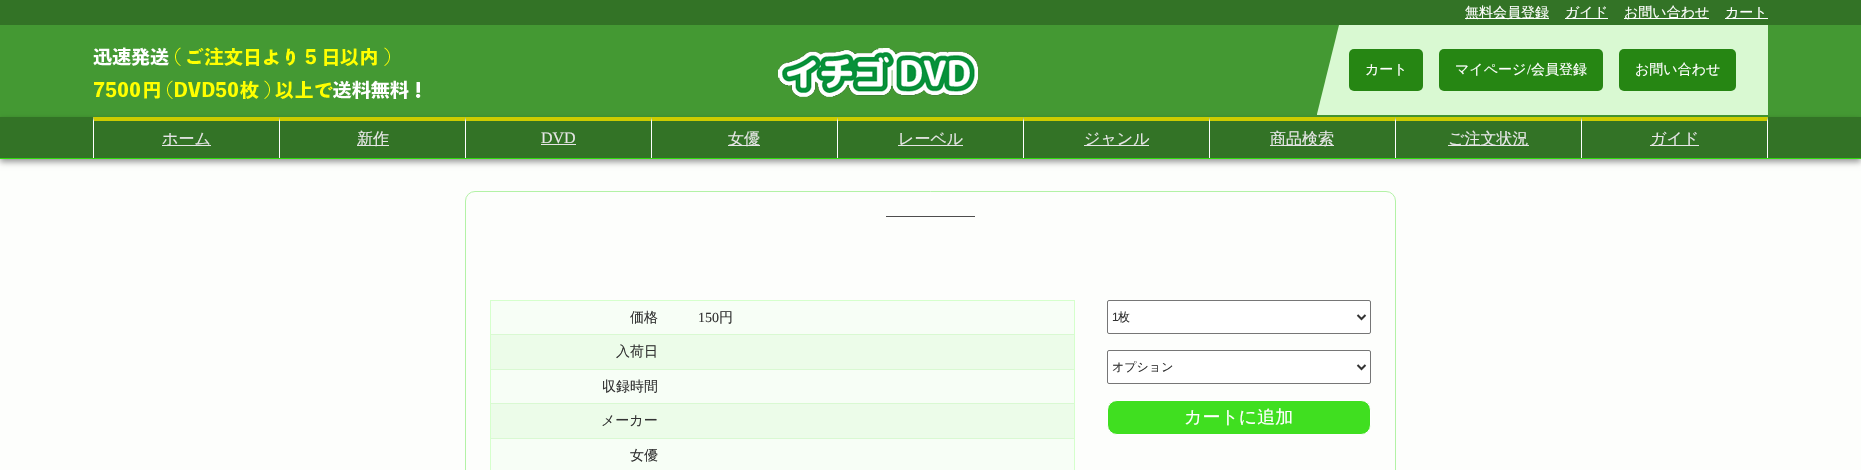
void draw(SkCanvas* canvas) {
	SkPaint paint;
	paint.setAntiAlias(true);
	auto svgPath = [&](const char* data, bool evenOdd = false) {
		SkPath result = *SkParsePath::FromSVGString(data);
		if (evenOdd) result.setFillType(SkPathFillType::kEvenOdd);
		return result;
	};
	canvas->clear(0xfffdfefc);
	paint.setColor(0xff337326);
	canvas->drawRect(SkRect::MakeXYWH(0, 0, 1861, 25), paint);
	paint.setColor(0xffffffff);
	canvas->drawRect(SkRect::MakeXYWH(1465, 18, 84, 1), paint);
	SkFont f1(fontMgr->matchFamilyStyle("WenQuanYi Zen Hei", SkFontStyle(500, SkFontStyle::kNormal_Width, SkFontStyle::kUpright_Slant)), 14);
	f1.setSubpixel(true);
	canvas->drawString("無料会員登録", 1465, 17, f1, paint);
	canvas->drawRect(SkRect::MakeXYWH(1565, 18, 43, 1), paint);
	canvas->drawString("ガイド", 1565, 17, f1, paint);
	canvas->drawRect(SkRect::MakeXYWH(1624, 18, 85, 1), paint);
	canvas->drawString("お問い合わせ", 1624, 17, f1, paint);
	canvas->drawRect(SkRect::MakeXYWH(1725, 18, 43, 1), paint);
	canvas->drawString("カート", 1725, 17, f1, paint);
	paint.setColor(0xff449933);
	canvas->drawRect(SkRect::MakeXYWH(0, 25, 1861, 92), paint);
	canvas->drawImageRect(SkImages::DeferredFromEncodedData(SkData::MakeFromFileName("img1.png")), SkRect::MakeXYWH(93, 47, 328, 52), SkSamplingOptions());
	canvas->drawImageRect(SkImages::DeferredFromEncodedData(SkData::MakeFromFileName("img2.png")), SkRect::MakeXYWH(778, 48, 200, 49), SkSamplingOptions());
	paint.setColor(0x66000000);
	paint.setMaskFilter(SkMaskFilter::MakeBlur(kNormal_SkBlurStyle, 3));
	canvas->drawRect(SkRect::MakeXYWH(0, 120, 1861, 42), paint);
	paint.setMaskFilter(nullptr);
	paint.setColor(0xffd9f9d2);
	canvas->drawPath(svgPath("M1339 25H1768V115H1317V114Z"), paint);
	paint.setColor(0xff268613);
	canvas->drawRoundRect(SkRect::MakeXYWH(1349, 49, 74, 42), 5, 5, paint);
	paint.setColor(0xffffffff);
	canvas->drawString("カート", 1365, 74, f1, paint);
	paint.setColor(0xff268613);
	canvas->drawRoundRect(SkRect::MakeXYWH(1439, 49, 164, 42), 5, 5, paint);
	paint.setColor(0xffffffff);
	canvas->drawString("マイページ", 1455, 74, f1, paint);
	SkFont f2(fontMgr->matchFamilyStyle("Liberation Serif", SkFontStyle::Normal()), 14);
	f2.setSubpixel(true);
	canvas->drawString("/", 1527, 74, f2, paint);
	canvas->drawString("会員登録", 1531, 74, f1, paint);
	paint.setColor(0xff268613);
	canvas->drawRoundRect(SkRect::MakeXYWH(1619, 49, 117, 42), 5, 5, paint);
	paint.setColor(0xffffffff);
	canvas->drawString("お問い合わせ", 1635, 74, f1, paint);
	paint.setColor(0xff337326);
	canvas->drawRect(SkRect::MakeXYWH(0, 117, 1861, 41), paint);
	paint.setColor(0xff2eda0b);
	canvas->drawRect(SkRect::MakeXYWH(0, 158, 1861, 1), paint);
	paint.setColor(0xffcccc00);
	canvas->drawPath(svgPath("M93 117H279V121H94Z"), paint);
	paint.setColor(0xffffffff);
	canvas->drawPath(svgPath("M93 158V117L94 121V158Z"), paint);
	paint.setColor(0xffe6e6e6);
	canvas->drawRect(SkRect::MakeXYWH(162, 145, 49, 1), paint);
	SkFont f3(fontMgr->matchFamilyStyle("WenQuanYi Zen Hei", SkFontStyle(500, SkFontStyle::kNormal_Width, SkFontStyle::kUpright_Slant)), 16);
	f3.setSubpixel(true);
	canvas->drawString("ホーム", 162, 144, f3, paint);
	paint.setColor(0xffcccc00);
	canvas->drawPath(svgPath("M279 117H465V121H280Z"), paint);
	paint.setColor(0xffffffff);
	canvas->drawPath(svgPath("M279 158V117L280 121V158Z"), paint);
	paint.setColor(0xffe6e6e6);
	canvas->drawRect(SkRect::MakeXYWH(357, 145, 32, 1), paint);
	canvas->drawString("新作", 357, 144, f3, paint);
	paint.setColor(0xffcccc00);
	canvas->drawPath(svgPath("M465 117H651V121H466Z"), paint);
	paint.setColor(0xffffffff);
	canvas->drawPath(svgPath("M465 158V117L466 121V158Z"), paint);
	SkFont f4(fontMgr->matchFamilyStyle("Liberation Serif", SkFontStyle::Normal()), 16);
	f4.setSubpixel(true);
	paint.setColor(0xffe6e6e6);
	canvas->drawString("DVD", 541, 143, f4, paint);
	canvas->drawRect(SkRect::MakeXYWH(541, 144, 35, 1), paint);
	paint.setColor(0xffcccc00);
	canvas->drawPath(svgPath("M651 117H837V121H652Z"), paint);
	paint.setColor(0xffffffff);
	canvas->drawPath(svgPath("M651 158V117L652 121V158Z"), paint);
	paint.setColor(0xffe6e6e6);
	canvas->drawRect(SkRect::MakeXYWH(728, 145, 32, 1), paint);
	canvas->drawString("女優", 728, 144, f3, paint);
	paint.setColor(0xffcccc00);
	canvas->drawPath(svgPath("M837 117H1023V121H838Z"), paint);
	paint.setColor(0xffffffff);
	canvas->drawPath(svgPath("M837 158V117L838 121V158Z"), paint);
	paint.setColor(0xffe6e6e6);
	canvas->drawString("レーベル", 898, 144, f3, paint);
	canvas->drawRect(SkRect::MakeXYWH(898, 145, 65, 1), paint);
	paint.setColor(0xffcccc00);
	canvas->drawPath(svgPath("M1023 117H1209V121H1024Z"), paint);
	paint.setColor(0xffffffff);
	canvas->drawPath(svgPath("M1023 158V117L1024 121V158Z"), paint);
	paint.setColor(0xffe6e6e6);
	canvas->drawRect(SkRect::MakeXYWH(1084, 145, 65, 1), paint);
	canvas->drawString("ジャンル", 1084, 144, f3, paint);
	paint.setColor(0xffcccc00);
	canvas->drawPath(svgPath("M1209 117H1395V121H1210Z"), paint);
	paint.setColor(0xffffffff);
	canvas->drawPath(svgPath("M1209 158V117L1210 121V158Z"), paint);
	paint.setColor(0xffe6e6e6);
	canvas->drawRect(SkRect::MakeXYWH(1270, 145, 64, 1), paint);
	canvas->drawString("商品検索", 1270, 144, f3, paint);
	paint.setColor(0xffcccc00);
	canvas->drawPath(svgPath("M1395 117H1581V121H1396Z"), paint);
	paint.setColor(0xffffffff);
	canvas->drawPath(svgPath("M1395 158V117L1396 121V158Z"), paint);
	paint.setColor(0xffe6e6e6);
	canvas->drawRect(SkRect::MakeXYWH(1448, 145, 81, 1), paint);
	canvas->drawString("ご注文状況", 1448, 144, f3, paint);
	paint.setColor(0xffcccc00);
	canvas->drawPath(svgPath("M1581 117H1768L1767 121H1582Z"), paint);
	paint.setColor(0xffffffff);
	canvas->drawPath(svgPath("M1768 117V158H1767V121Z"), paint);
	canvas->drawPath(svgPath("M1581 158V117L1582 121V158Z"), paint);
	paint.setColor(0xffe6e6e6);
	canvas->drawRect(SkRect::MakeXYWH(1650, 145, 49, 1), paint);
	canvas->drawString("ガイド", 1650, 144, f3, paint);
	paint.setStroke(true);
	paint.setStrokeWidth(1);
	paint.setColor(0xffb3f2a6);
	canvas->drawRoundRect(SkRect::MakeXYWH(465.5, 191.5, 930, 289), 9.5, 9.5, paint);
	paint.setStroke(false);
	paint.setColor(0xff4d4d4d);
	canvas->drawRect(SkRect::MakeXYWH(886, 216, 89, 1), paint);
	paint.setStroke(true);
	paint.setColor(0xffd5ffcc);
	canvas->drawRect(SkRect::MakeXYWH(490.5, 300.5, 584, 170), paint);
	paint.setStroke(false);
	paint.setColor(0xfff7fef6);
	canvas->drawRect(SkRect::MakeXYWH(491, 301, 583, 33), paint);
	paint.setColor(0xffd9f9d2);
	canvas->drawRect(SkRect::MakeXYWH(491, 334, 583, 1), paint);
	paint.setColor(0xff333333);
	canvas->drawString("価格", 630, 322, f1, paint);
	canvas->drawString("150", 698, 322, f2, paint);
	canvas->drawString("円", 719, 322, f1, paint);
	paint.setColor(0xffecfce9);
	canvas->drawRect(SkRect::MakeXYWH(491, 335, 583, 34), paint);
	paint.setColor(0xffd9f9d2);
	canvas->drawRect(SkRect::MakeXYWH(491, 369, 583, 1), paint);
	paint.setColor(0xff333333);
	canvas->drawString("入荷日", 616, 356, f1, paint);
	paint.setColor(0xfff7fef6);
	canvas->drawRect(SkRect::MakeXYWH(491, 370, 583, 33), paint);
	paint.setColor(0xffd9f9d2);
	canvas->drawRect(SkRect::MakeXYWH(491, 403, 583, 1), paint);
	paint.setColor(0xff333333);
	canvas->drawString("収録時間", 602, 391, f1, paint);
	paint.setColor(0xffecfce9);
	canvas->drawRect(SkRect::MakeXYWH(491, 404, 583, 34), paint);
	paint.setColor(0xffd9f9d2);
	canvas->drawRect(SkRect::MakeXYWH(491, 438, 583, 1), paint);
	paint.setColor(0xff333333);
	canvas->drawString("メーカー", 601, 425, f1, paint);
	paint.setColor(0xfff7fef6);
	canvas->drawRect(SkRect::MakeXYWH(491, 439, 583, 31), paint);
	paint.setColor(0xff333333);
	canvas->drawString("女優", 630, 460, f1, paint);
	paint.setColor(0xffffffff);
	canvas->drawRoundRect(SkRect::MakeXYWH(1107.5, 300.5, 263, 33), 1.5, 1.5, paint);
	paint.setStroke(true);
	paint.setColor(0xff767676);
	canvas->drawRoundRect(SkRect::MakeXYWH(1107.5, 300.5, 263, 33), 1.5, 1.5, paint);
	paint.setStrokeWidth(2);
	paint.setColor(0xff333333);
	canvas->drawPath(svgPath("M1357.5 315L1361.5 319L1365.5 315"), paint);
	SkFont f5(fontMgr->matchFamilyStyle("Liberation Sans", SkFontStyle::Normal()), 12);
	f5.setSubpixel(true);
	paint.setStroke(false);
	canvas->drawString("1", 1112, 321, f5, paint);
	SkFont f6(fontMgr->matchFamilyStyle("WenQuanYi Zen Hei", SkFontStyle(500, SkFontStyle::kNormal_Width, SkFontStyle::kUpright_Slant)), 12);
	f6.setSubpixel(true);
	canvas->drawString("枚", 1118, 321, f6, paint);
	paint.setColor(0xffffffff);
	canvas->drawRoundRect(SkRect::MakeXYWH(1107.5, 350.5, 263, 33), 1.5, 1.5, paint);
	paint.setStroke(true);
	paint.setStrokeWidth(1);
	paint.setColor(0xff767676);
	canvas->drawRoundRect(SkRect::MakeXYWH(1107.5, 350.5, 263, 33), 1.5, 1.5, paint);
	paint.setStrokeWidth(2);
	paint.setColor(0xff333333);
	canvas->drawPath(svgPath("M1357.5 365L1361.5 369L1365.5 365"), paint);
	paint.setStroke(false);
	canvas->drawString("オプション", 1112, 371, f6, paint);
	paint.setColor(0xff40df20);
	canvas->drawRoundRect(SkRect::MakeXYWH(1107.5, 400.5, 263, 34), 9.5, 9.5, paint);
	paint.setStroke(true);
	paint.setStrokeWidth(1);
	paint.setColor(0xffffffff);
	canvas->drawRoundRect(SkRect::MakeXYWH(1107.5, 400.5, 263, 34), 9.5, 9.5, paint);
	SkFont f7(fontMgr->matchFamilyStyle("WenQuanYi Zen Hei", SkFontStyle(500, SkFontStyle::kNormal_Width, SkFontStyle::kUpright_Slant)), 18);
	f7.setSubpixel(true);
	paint.setStroke(false);
	canvas->drawString("カートに追加", 1184, 423, f7, paint);
}
